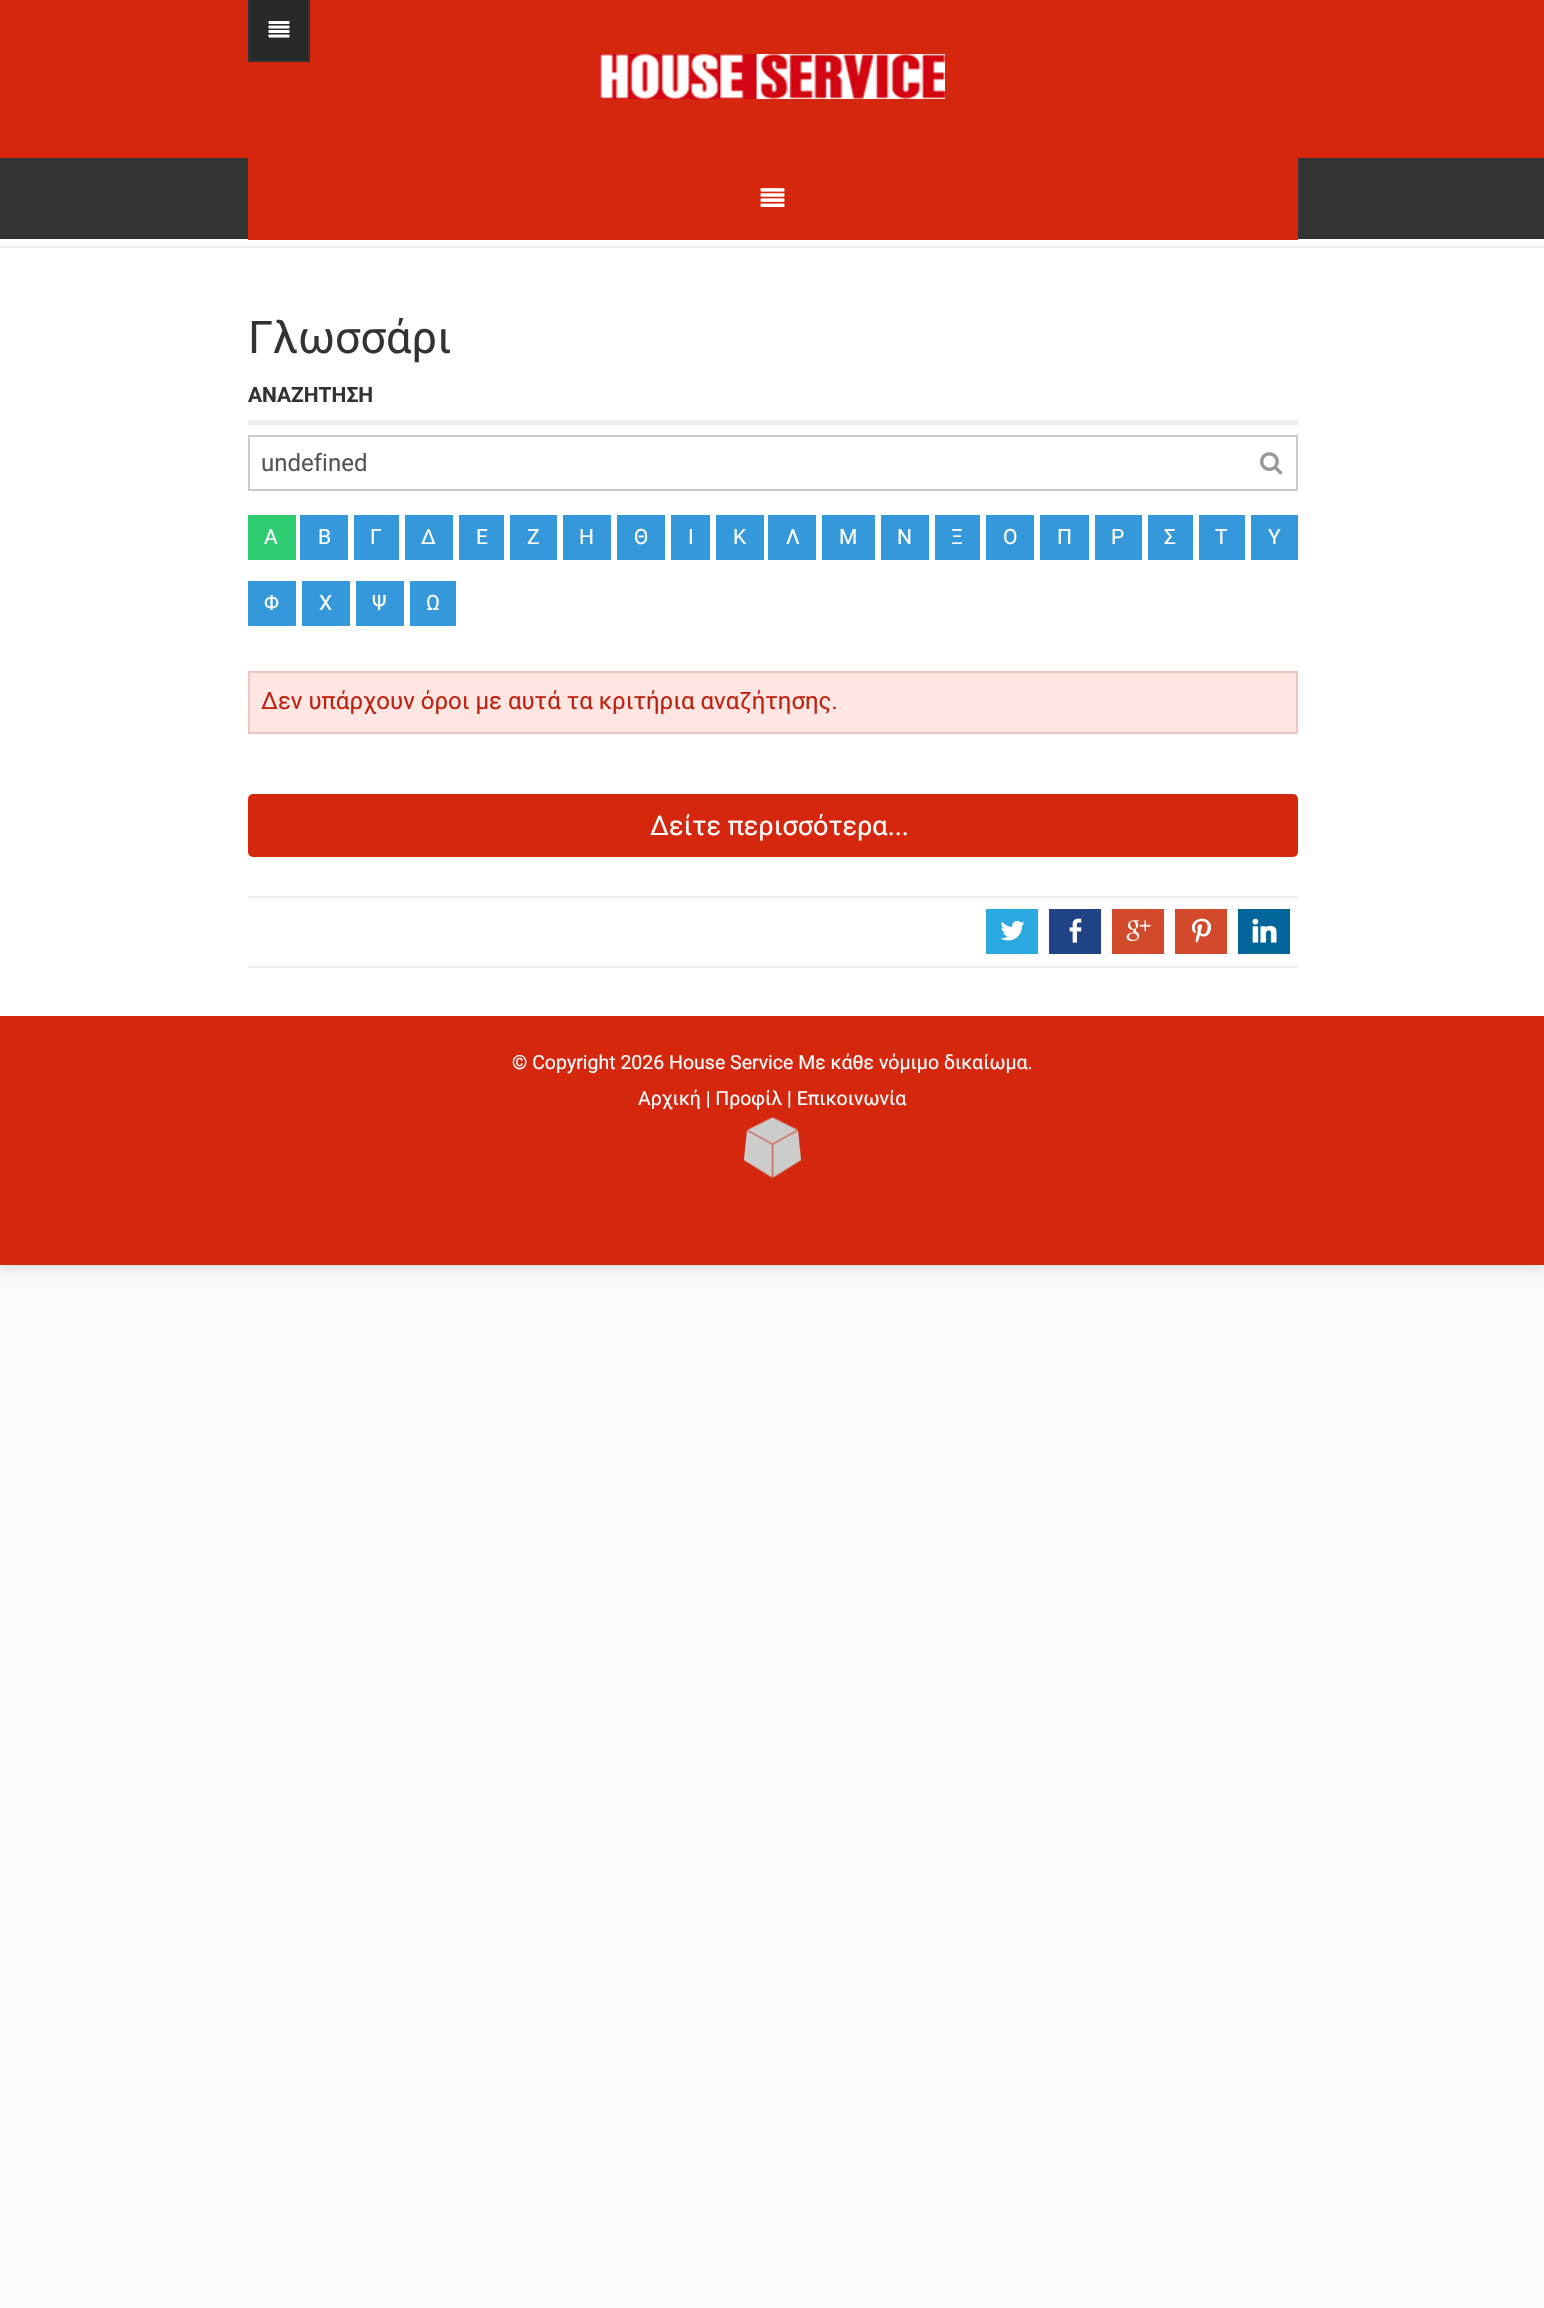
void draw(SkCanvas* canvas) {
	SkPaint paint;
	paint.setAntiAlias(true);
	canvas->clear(0xfffafafa);
	paint.setColor(0x33000000);
	paint.setMaskFilter(SkMaskFilter::MakeBlur(kNormal_SkBlurStyle, 7.5));
	canvas->drawRect(SkRect::MakeXYWH(0, 0, 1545, 1265), paint);
	paint.setMaskFilter(nullptr);
	paint.setColor(0xffffffff);
	canvas->drawRect(SkRect::MakeXYWH(0, 239, 1544, 777), paint);
	paint.setColor(0xffd4270e);
	canvas->drawRect(SkRect::MakeXYWH(0, 0, 1544, 158), paint);
	paint.setColor(0xff292929);
	canvas->drawRect(SkRect::MakeXYWH(250, 0, 58, 60), paint);
	paint.setColor(0xff333333);
	canvas->drawRect(SkRect::MakeXYWH(308, 0, 2, 62), paint);
	canvas->drawRect(SkRect::MakeXYWH(248, 60, 61, 2), paint);
	canvas->drawRect(SkRect::MakeXYWH(248, 0, 2, 62), paint);
	canvas->drawImageRect(SkImages::DeferredFromEncodedData(SkData::MakeFromFileName("img1.png")), SkRect::MakeXYWH(268, 21, 22, 17), SkSamplingOptions());
	canvas->drawImageRect(SkImages::DeferredFromEncodedData(SkData::MakeFromFileName("img2.png")), SkRect::MakeXYWH(600, 54, 345, 45), SkSamplingOptions());
	canvas->drawRect(SkRect::MakeXYWH(0, 158, 1544, 81), paint);
	paint.setColor(0xffd4270e);
	canvas->drawRect(SkRect::MakeXYWH(248, 158, 1050, 82), paint);
	canvas->drawImageRect(SkImages::DeferredFromEncodedData(SkData::MakeFromFileName("img3.png")), SkRect::MakeXYWH(760, 188, 25, 19), SkSamplingOptions());
	paint.setColor(0xffeeeeee);
	canvas->drawRect(SkRect::MakeXYWH(0, 246, 1544, 2), paint);
	SkFont f1(fontMgr->matchFamilyStyle("Roboto", SkFontStyle::Normal()), 45);
	f1.setSubpixel(true);
	paint.setColor(0xff333333);
	canvas->drawString("Γλωσσάρι", 248, 353, f1, paint);
	paint.setColor(0xffeeeeee);
	canvas->drawRect(SkRect::MakeXYWH(248, 896, 1050, 2), paint);
	canvas->drawRect(SkRect::MakeXYWH(248, 420, 1050, 5), paint);
	SkFont f2(fontMgr->matchFamilyStyle("Roboto", SkFontStyle::Bold()), 21);
	f2.setSubpixel(true);
	paint.setColor(0xff333333);
	canvas->drawString("ΑΝΑΖΗΤΗΣΗ", 248, 402, f2, paint);
	paint.setStroke(true);
	paint.setStrokeWidth(2);
	paint.setColor(0xffcccccc);
	canvas->drawRect(SkRect::MakeXYWH(249, 436, 1048, 54), paint);
	SkFont f3(fontMgr->matchFamilyStyle("Roboto", SkFontStyle::Normal()), 24);
	f3.setSubpixel(true);
	paint.setStroke(false);
	paint.setColor(0xff555555);
	canvas->drawString("undefined", 261, 471, f3, paint);
	canvas->drawImageRect(SkImages::DeferredFromEncodedData(SkData::MakeFromFileName("img4.png")), SkRect::MakeXYWH(1260, 452, 23, 23), SkSamplingOptions());
	paint.setColor(0xff2ecc71);
	canvas->drawRect(SkRect::MakeXYWH(248, 515, 48, 45), paint);
	SkFont f4(fontMgr->matchFamilyStyle("Roboto", SkFontStyle::Normal()), 21);
	f4.setSubpixel(true);
	paint.setColor(0xffffffff);
	canvas->drawString("Α", 264, 544, f4, paint);
	paint.setColor(0xff3498db);
	canvas->drawRect(SkRect::MakeXYWH(300, 515, 48, 45), paint);
	paint.setColor(0xffffffff);
	canvas->drawString("Β", 318, 544, f4, paint);
	paint.setColor(0xff3498db);
	canvas->drawRect(SkRect::MakeXYWH(354, 515, 45, 45), paint);
	paint.setColor(0xffffffff);
	canvas->drawString("Γ", 370, 544, f4, paint);
	paint.setColor(0xff3498db);
	canvas->drawRect(SkRect::MakeXYWH(405, 515, 48, 45), paint);
	paint.setColor(0xffffffff);
	canvas->drawString("Δ", 421, 544, f4, paint);
	paint.setColor(0xff3498db);
	canvas->drawRect(SkRect::MakeXYWH(459, 515, 45, 45), paint);
	paint.setColor(0xffffffff);
	canvas->drawString("Ε", 476, 544, f4, paint);
	paint.setColor(0xff3498db);
	canvas->drawRect(SkRect::MakeXYWH(510, 515, 47, 45), paint);
	paint.setColor(0xffffffff);
	canvas->drawString("Ζ", 527, 544, f4, paint);
	paint.setColor(0xff3498db);
	canvas->drawRect(SkRect::MakeXYWH(563, 515, 48, 45), paint);
	paint.setColor(0xffffffff);
	canvas->drawString("Η", 579, 544, f4, paint);
	paint.setColor(0xff3498db);
	canvas->drawRect(SkRect::MakeXYWH(617, 515, 48, 45), paint);
	paint.setColor(0xffffffff);
	canvas->drawString("Θ", 634, 544, f4, paint);
	paint.setColor(0xff3498db);
	canvas->drawRect(SkRect::MakeXYWH(671, 515, 39, 45), paint);
	paint.setColor(0xffffffff);
	canvas->drawString("Ι", 688, 544, f4, paint);
	paint.setColor(0xff3498db);
	canvas->drawRect(SkRect::MakeXYWH(716, 515, 48, 45), paint);
	paint.setColor(0xffffffff);
	canvas->drawString("Κ", 733, 544, f4, paint);
	paint.setColor(0xff3498db);
	canvas->drawRect(SkRect::MakeXYWH(768, 515, 48, 45), paint);
	paint.setColor(0xffffffff);
	canvas->drawString("Λ", 786, 544, f4, paint);
	paint.setColor(0xff3498db);
	canvas->drawRect(SkRect::MakeXYWH(822, 515, 53, 45), paint);
	paint.setColor(0xffffffff);
	canvas->drawString("Μ", 839, 544, f4, paint);
	paint.setColor(0xff3498db);
	canvas->drawRect(SkRect::MakeXYWH(881, 515, 48, 45), paint);
	paint.setColor(0xffffffff);
	canvas->drawString("Ν", 897, 544, f4, paint);
	paint.setColor(0xff3498db);
	canvas->drawRect(SkRect::MakeXYWH(935, 515, 45, 45), paint);
	paint.setColor(0xffffffff);
	canvas->drawString("Ξ", 951, 544, f4, paint);
	paint.setColor(0xff3498db);
	canvas->drawRect(SkRect::MakeXYWH(986, 515, 48, 45), paint);
	paint.setColor(0xffffffff);
	canvas->drawString("Ο", 1003, 544, f4, paint);
	paint.setColor(0xff3498db);
	canvas->drawRect(SkRect::MakeXYWH(1040, 515, 49, 45), paint);
	paint.setColor(0xffffffff);
	canvas->drawString("Π", 1057, 544, f4, paint);
	paint.setColor(0xff3498db);
	canvas->drawRect(SkRect::MakeXYWH(1095, 515, 47, 45), paint);
	paint.setColor(0xffffffff);
	canvas->drawString("Ρ", 1111, 544, f4, paint);
	paint.setColor(0xff3498db);
	canvas->drawRect(SkRect::MakeXYWH(1148, 515, 45, 45), paint);
	paint.setColor(0xffffffff);
	canvas->drawString("Σ", 1164, 544, f4, paint);
	paint.setColor(0xff3498db);
	canvas->drawRect(SkRect::MakeXYWH(1199, 515, 46, 45), paint);
	paint.setColor(0xffffffff);
	canvas->drawString("Τ", 1215, 544, f4, paint);
	paint.setColor(0xff3498db);
	canvas->drawRect(SkRect::MakeXYWH(1251, 515, 47, 45), paint);
	paint.setColor(0xffffffff);
	canvas->drawString("Υ", 1268, 544, f4, paint);
	paint.setColor(0xff3498db);
	canvas->drawRect(SkRect::MakeXYWH(248, 581, 48, 45), paint);
	paint.setColor(0xffffffff);
	canvas->drawString("Φ", 264, 610, f4, paint);
	paint.setColor(0xff3498db);
	canvas->drawRect(SkRect::MakeXYWH(302, 581, 48, 45), paint);
	paint.setColor(0xffffffff);
	canvas->drawString("Χ", 319, 610, f4, paint);
	paint.setColor(0xff3498db);
	canvas->drawRect(SkRect::MakeXYWH(356, 581, 48, 45), paint);
	paint.setColor(0xffffffff);
	canvas->drawString("Ψ", 372, 610, f4, paint);
	paint.setColor(0xff3498db);
	canvas->drawRect(SkRect::MakeXYWH(410, 581, 46, 45), paint);
	paint.setColor(0xffffffff);
	canvas->drawString("Ω", 426, 610, f4, paint);
	paint.setColor(0xffffe6e3);
	canvas->drawRect(SkRect::MakeXYWH(249, 672, 1048, 61), paint);
	paint.setStroke(true);
	paint.setColor(0xfff2c3bf);
	canvas->drawRect(SkRect::MakeXYWH(249, 672, 1048, 61), paint);
	paint.setStroke(false);
	paint.setColor(0xffbf210e);
	canvas->drawString("Δεν υπάρχουν όροι με αυτά τα κριτήρια αναζήτησης.", 261, 709, f3, paint);
	paint.setColor(0xffd4270e);
	canvas->drawRoundRect(SkRect::MakeXYWH(248, 794, 1050, 63), 5, 5, paint);
	SkFont f5(fontMgr->matchFamilyStyle("Roboto", SkFontStyle::Normal()), 27);
	f5.setSubpixel(true);
	paint.setColor(0xffffffff);
	canvas->drawString("Δείτε περισσότερα...", 650, 835, f5, paint);
	paint.setColor(0xffeeeeee);
	canvas->drawRect(SkRect::MakeXYWH(248, 966, 1050, 2), paint);
	paint.setColor(0xff2aa9e0);
	canvas->drawRect(SkRect::MakeXYWH(986, 909, 52, 45), paint);
	canvas->drawImageRect(SkImages::DeferredFromEncodedData(SkData::MakeFromFileName("img5.png")), SkRect::MakeXYWH(1000, 920, 25, 21), SkSamplingOptions());
	paint.setColor(0xff204385);
	canvas->drawRect(SkRect::MakeXYWH(1049, 909, 52, 45), paint);
	canvas->drawImageRect(SkImages::DeferredFromEncodedData(SkData::MakeFromFileName("img6.png")), SkRect::MakeXYWH(1069, 918, 13, 25), SkSamplingOptions());
	paint.setColor(0xffd3492c);
	canvas->drawRect(SkRect::MakeXYWH(1112, 909, 52, 45), paint);
	canvas->drawImageRect(SkImages::DeferredFromEncodedData(SkData::MakeFromFileName("img7.png")), SkRect::MakeXYWH(1126, 920, 25, 21), SkSamplingOptions());
	canvas->drawRect(SkRect::MakeXYWH(1175, 909, 52, 45), paint);
	canvas->drawImageRect(SkImages::DeferredFromEncodedData(SkData::MakeFromFileName("img8.png")), SkRect::MakeXYWH(1191, 918, 21, 25), SkSamplingOptions());
	paint.setColor(0xff02669a);
	canvas->drawRect(SkRect::MakeXYWH(1238, 909, 52, 45), paint);
	canvas->drawImageRect(SkImages::DeferredFromEncodedData(SkData::MakeFromFileName("img9.png")), SkRect::MakeXYWH(1252, 918, 25, 25), SkSamplingOptions());
	paint.setColor(0xffd4270e);
	canvas->drawRect(SkRect::MakeXYWH(0, 1016, 1544, 249), paint);
	SkFont f6(fontMgr->matchFamilyStyle("Roboto", SkFontStyle::Normal()), 19.5);
	f6.setSubpixel(true);
	paint.setColor(0xffffffff);
	canvas->drawString("© Copyright 2026 House Service Με κάθε νόμιμο δικαίωμα.", 512, 1069, f6, paint);
	canvas->drawString("Αρχική | Προφίλ | Επικοινωνία", 638, 1105, f6, paint);
	canvas->drawImageRect(SkImages::DeferredFromEncodedData(SkData::MakeFromFileName("img10.png")), SkRect::MakeXYWH(744, 1117, 57, 61), SkSamplingOptions());
}
